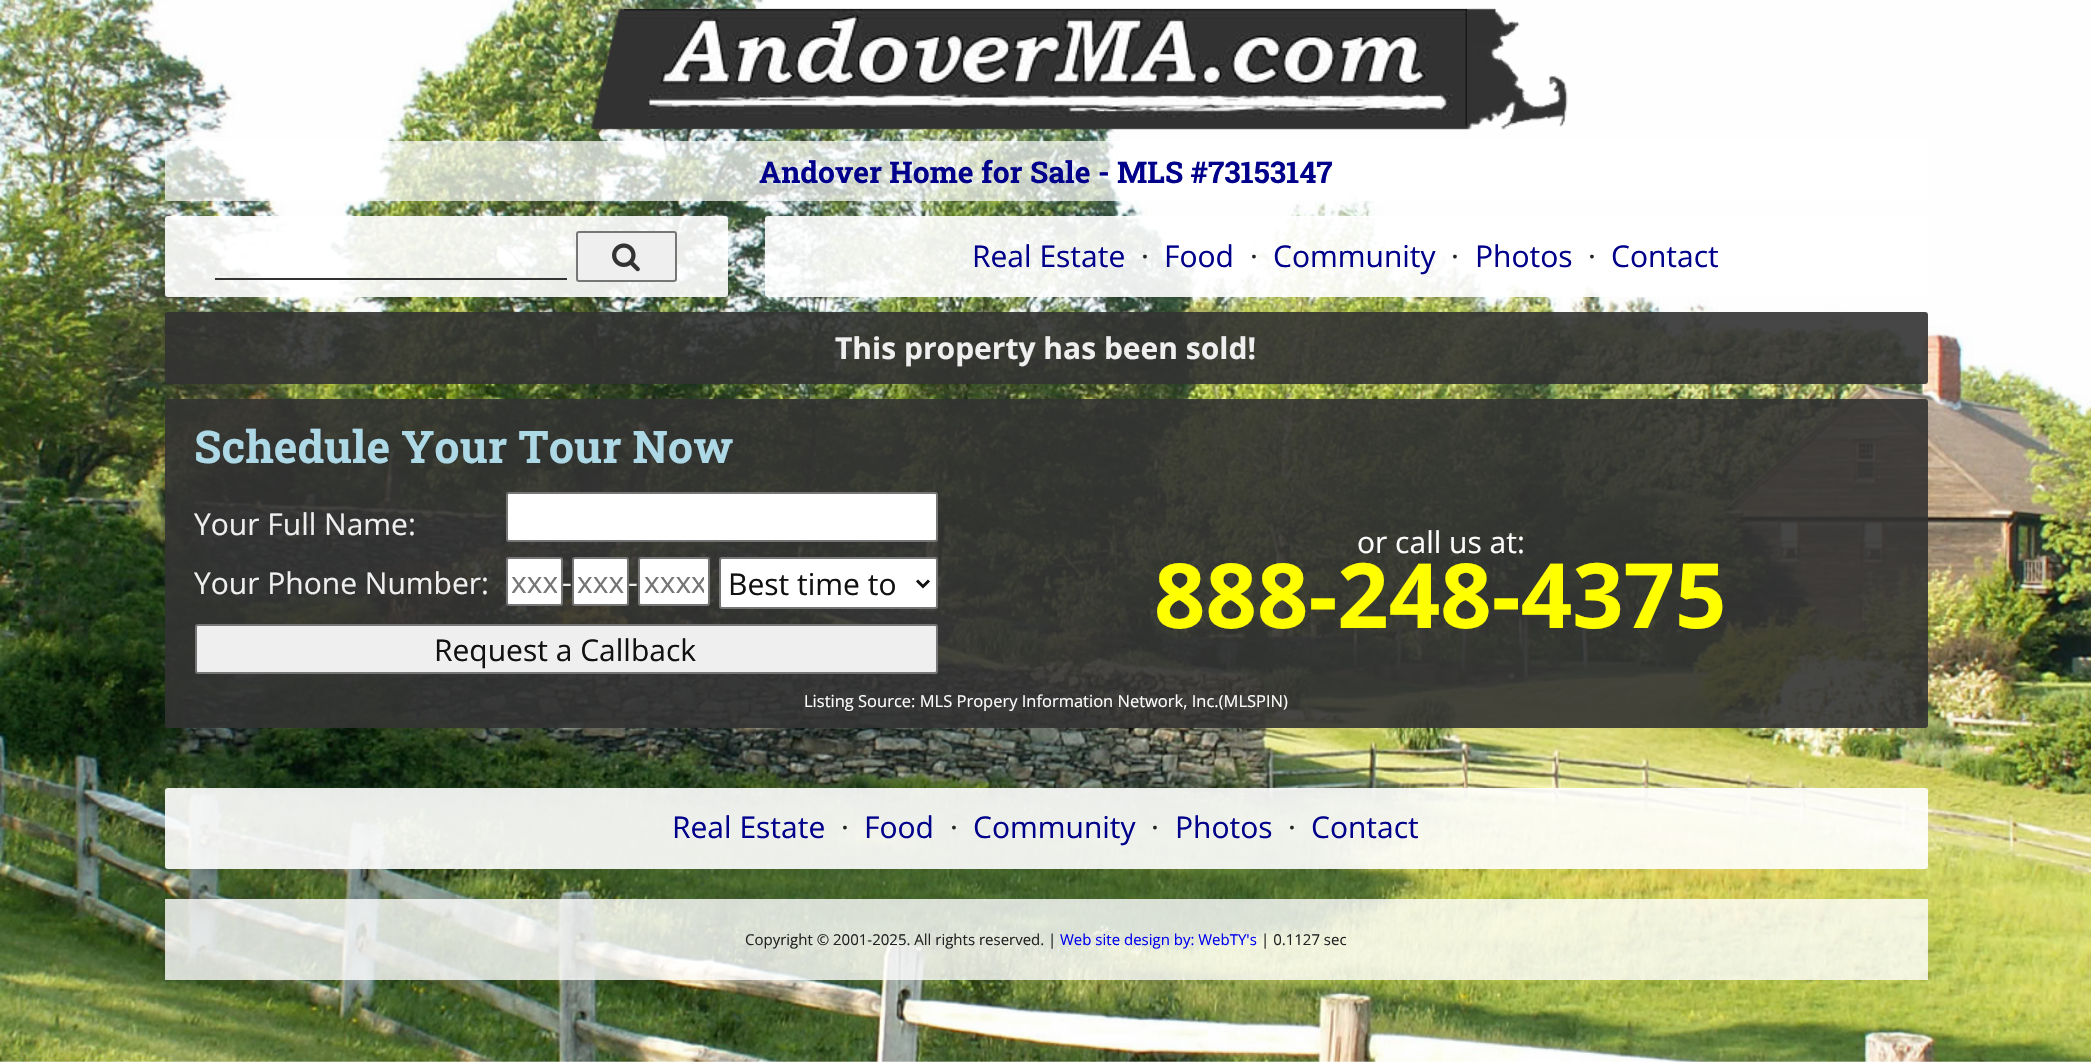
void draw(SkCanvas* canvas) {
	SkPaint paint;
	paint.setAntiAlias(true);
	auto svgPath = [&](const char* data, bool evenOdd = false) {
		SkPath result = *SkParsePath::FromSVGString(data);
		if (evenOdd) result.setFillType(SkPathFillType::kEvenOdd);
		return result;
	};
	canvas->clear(0xffffffff);
	canvas->drawImageRect(SkImages::DeferredFromEncodedData(SkData::MakeFromFileName("img1.png")), SkRect::MakeXYWH(0, 0, 2091, 1062), SkSamplingOptions());
	canvas->drawImageRect(SkImages::DeferredFromEncodedData(SkData::MakeFromFileName("img2.png")), SkRect::MakeXYWH(590, 8, 978, 122), SkSamplingOptions());
	canvas->drawImageRect(SkImages::DeferredFromEncodedData(SkData::MakeFromFileName("img3.png")), SkRect::MakeXYWH(624, 9, 843, 117), SkSamplingOptions());
	paint.setColor(0xb3ffffff);
	canvas->drawRoundRect(SkRect::MakeXYWH(165, 141, 1763, 60), 3, 3, paint);
	SkFont f1(fontMgr->matchFamilyStyle("Roboto Slab", SkFontStyle::Bold()), 30);
	f1.setSubpixel(true);
	paint.setColor(0xff00008b);
	canvas->drawString("Andover Home for Sale - MLS #73153147", 759, 183, f1, paint);
	paint.setColor(0xe6ffffff);
	canvas->drawRoundRect(SkRect::MakeXYWH(165, 216, 563, 81), 3, 3, paint);
	paint.setColor(0xff333333);
	canvas->drawRect(SkRect::MakeXYWH(215, 278, 352, 2), paint);
	paint.setColor(0xffefefef);
	canvas->drawRoundRect(SkRect::MakeXYWH(577, 232, 99, 49), 2, 2, paint);
	paint.setStroke(true);
	paint.setStrokeWidth(2);
	paint.setColor(0xff767676);
	canvas->drawRoundRect(SkRect::MakeXYWH(577, 232, 99, 49), 2, 2, paint);
	canvas->drawImageRect(SkImages::DeferredFromEncodedData(SkData::MakeFromFileName("img4.png")), SkRect::MakeXYWH(612, 243, 28, 29), SkSamplingOptions());
	paint.setStroke(false);
	paint.setColor(0xe6ffffff);
	canvas->drawRoundRect(SkRect::MakeXYWH(765, 216, 1163, 81), 3, 3, paint);
	SkFont f2(fontMgr->matchFamilyStyle("Open Sans", SkFontStyle::Normal()), 30);
	f2.setSubpixel(true);
	paint.setColor(0xff00008b);
	canvas->drawString("Real Estate", 972, 267, f2, paint);
	paint.setColor(0xff222222);
	canvas->drawString("·", 1141, 267, f2, paint);
	paint.setColor(0xff00008b);
	canvas->drawString("Food", 1164, 267, f2, paint);
	paint.setColor(0xff222222);
	canvas->drawString("·", 1250, 267, f2, paint);
	paint.setColor(0xff00008b);
	canvas->drawString("Community", 1273, 267, f2, paint);
	paint.setColor(0xff222222);
	canvas->drawString("·", 1451, 267, f2, paint);
	paint.setColor(0xff00008b);
	canvas->drawString("Photos", 1475, 267, f2, paint);
	paint.setColor(0xff222222);
	canvas->drawString("·", 1588, 267, f2, paint);
	paint.setColor(0xff00008b);
	canvas->drawString("Contact", 1611, 267, f2, paint);
	paint.setColor(0xe6323232);
	canvas->drawRoundRect(SkRect::MakeXYWH(165, 312, 1763, 72), 3, 3, paint);
	SkFont f3(fontMgr->matchFamilyStyle("Open Sans", SkFontStyle::Bold()), 30);
	f3.setSubpixel(true);
	paint.setColor(0xffefefef);
	canvas->drawString("This property has been sold!", 835, 359, f3, paint);
	paint.setColor(0xe6323232);
	canvas->drawRoundRect(SkRect::MakeXYWH(165, 399, 1763, 329), 3, 3, paint);
	SkFont f4(fontMgr->matchFamilyStyle("Roboto Slab", SkFontStyle::Bold()), 45);
	f4.setSubpixel(true);
	paint.setColor(0xffadd8e6);
	canvas->drawString("Schedule Your Tour Now", 194, 463, f4, paint);
	paint.setColor(0xffefefef);
	canvas->drawString("Your Full Name:", 194, 535, f2, paint);
	paint.setColor(0xffffffff);
	canvas->drawRoundRect(SkRect::MakeXYWH(507, 493, 430, 48), 2, 2, paint);
	paint.setStroke(true);
	paint.setColor(0xff767676);
	canvas->drawRoundRect(SkRect::MakeXYWH(507, 493, 430, 48), 2, 2, paint);
	paint.setStroke(false);
	paint.setColor(0xffffffff);
	canvas->drawString("or call us at:", 1357, 553, f2, paint);
	SkFont f5(fontMgr->matchFamilyStyle("Open Sans", SkFontStyle::Bold()), 90);
	f5.setSubpixel(true);
	paint.setColor(0xffffff00);
	canvas->drawString("888-248-4375", 1154, 628, f5, paint);
	paint.setColor(0xffefefef);
	canvas->drawString("Your Phone Number:", 194, 594, f2, paint);
	paint.setColor(0xffffffff);
	canvas->drawRoundRect(SkRect::MakeXYWH(507, 558, 55, 47), 2, 2, paint);
	paint.setStroke(true);
	paint.setColor(0xff767676);
	canvas->drawRoundRect(SkRect::MakeXYWH(507, 558, 55, 47), 2, 2, paint);
	canvas->save();
	canvas->clipRect(SkRect::MakeXYWH(512, 561, 45, 41));
	paint.setStroke(false);
	paint.setColor(0xff757575);
	canvas->drawString("xxx", 511, 593, f2, paint);
	canvas->restore();
	paint.setColor(0xffefefef);
	canvas->drawString("-", 562, 593, f2, paint);
	paint.setColor(0xffffffff);
	canvas->drawRoundRect(SkRect::MakeXYWH(573, 558, 55, 47), 2, 2, paint);
	paint.setStroke(true);
	paint.setColor(0xff767676);
	canvas->drawRoundRect(SkRect::MakeXYWH(573, 558, 55, 47), 2, 2, paint);
	paint.setStroke(false);
	paint.setColor(0xff757575);
	canvas->drawString("xxx", 577, 593, f2, paint);
	paint.setColor(0xffefefef);
	canvas->drawString("-", 628, 593, f2, paint);
	paint.setColor(0xffffffff);
	canvas->drawRoundRect(SkRect::MakeXYWH(639, 558, 70, 47), 2, 2, paint);
	paint.setStroke(true);
	paint.setColor(0xff767676);
	canvas->drawRoundRect(SkRect::MakeXYWH(639, 558, 70, 47), 2, 2, paint);
	canvas->save();
	canvas->clipRect(SkRect::MakeXYWH(644, 561, 60, 41));
	paint.setStroke(false);
	paint.setColor(0xff757575);
	canvas->drawString("xxxx", 644, 593, f2, paint);
	canvas->restore();
	paint.setColor(0xffffffff);
	canvas->drawRoundRect(SkRect::MakeXYWH(720, 558, 217, 50), 2, 2, paint);
	paint.setStroke(true);
	paint.setColor(0xff767676);
	canvas->drawRoundRect(SkRect::MakeXYWH(720, 558, 217, 50), 2, 2, paint);
	paint.setStrokeWidth(3);
	paint.setColor(0xff111111);
	canvas->drawPath(svgPath("M917 580.5L923 586.5L929 580.5"), paint);
	paint.setStroke(false);
	canvas->drawString("Best time to", 728, 595, f2, paint);
	paint.setColor(0xffefefef);
	canvas->drawRoundRect(SkRect::MakeXYWH(196, 625, 741, 48), 2, 2, paint);
	paint.setStroke(true);
	paint.setStrokeWidth(2);
	paint.setColor(0xff767676);
	canvas->drawRoundRect(SkRect::MakeXYWH(196, 625, 741, 48), 2, 2, paint);
	paint.setStroke(false);
	paint.setColor(0xff111111);
	canvas->drawString("Request a Callback", 434, 661, f2, paint);
	SkFont f6(fontMgr->matchFamilyStyle("Open Sans", SkFontStyle::Normal()), 16.5);
	f6.setSubpixel(true);
	paint.setColor(0xffffffff);
	canvas->drawString("Listing Source: MLS Propery Information Network, Inc.(MLSPIN)", 804, 707, f6, paint);
	paint.setColor(0xe6ffffff);
	canvas->drawRoundRect(SkRect::MakeXYWH(165, 788, 1763, 81), 3, 3, paint);
	paint.setColor(0xff00008b);
	canvas->drawString("Real Estate", 672, 838, f2, paint);
	paint.setColor(0xff222222);
	canvas->drawString("·", 841, 838, f2, paint);
	paint.setColor(0xff00008b);
	canvas->drawString("Food", 864, 838, f2, paint);
	paint.setColor(0xff222222);
	canvas->drawString("·", 950, 838, f2, paint);
	paint.setColor(0xff00008b);
	canvas->drawString("Community", 973, 838, f2, paint);
	paint.setColor(0xff222222);
	canvas->drawString("·", 1151, 838, f2, paint);
	paint.setColor(0xff00008b);
	canvas->drawString("Photos", 1175, 838, f2, paint);
	paint.setColor(0xff222222);
	canvas->drawString("·", 1288, 838, f2, paint);
	paint.setColor(0xff00008b);
	canvas->drawString("Contact", 1311, 838, f2, paint);
	paint.setColor(0xccffffff);
	canvas->drawRect(SkRect::MakeXYWH(165, 899, 1763, 81), paint);
	SkFont f7(fontMgr->matchFamilyStyle("Open Sans", SkFontStyle::Normal()), 15);
	f7.setSubpixel(true);
	paint.setColor(0xff222222);
	canvas->drawString("Copyright © 2001-2025. All rights reserved. |", 745, 945, f7, paint);
	paint.setColor(0xff0000ee);
	canvas->drawString("Web site design by: WebTY's", 1060, 945, f7, paint);
	paint.setColor(0xff222222);
	canvas->drawString("| 0.1127 sec", 1261, 945, f7, paint);
}
